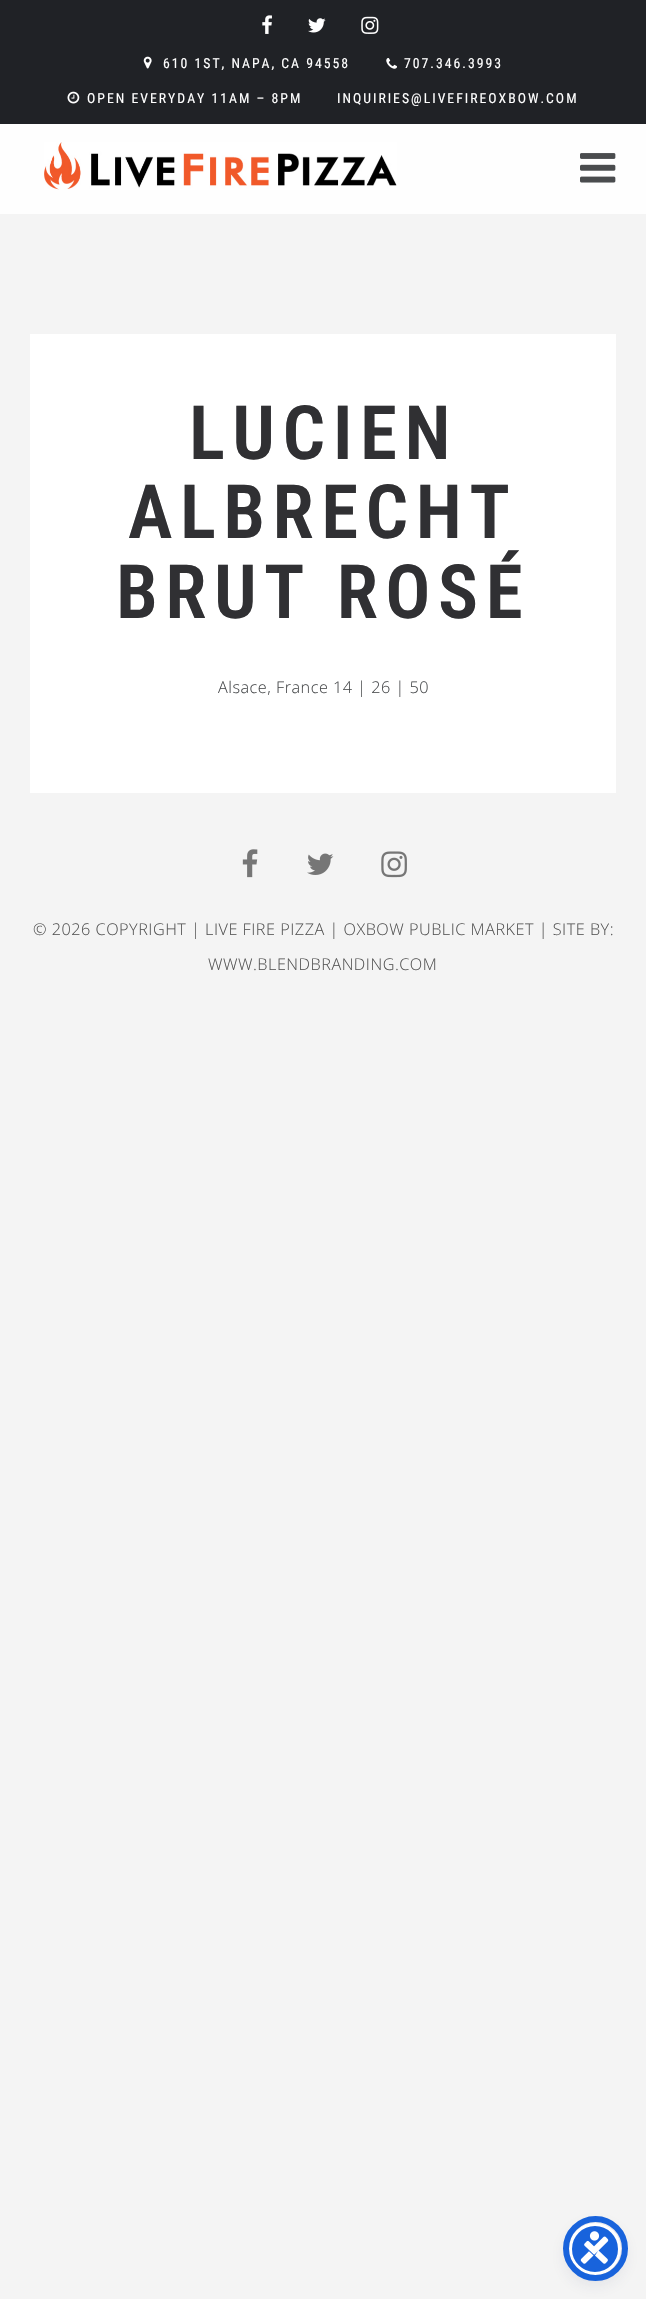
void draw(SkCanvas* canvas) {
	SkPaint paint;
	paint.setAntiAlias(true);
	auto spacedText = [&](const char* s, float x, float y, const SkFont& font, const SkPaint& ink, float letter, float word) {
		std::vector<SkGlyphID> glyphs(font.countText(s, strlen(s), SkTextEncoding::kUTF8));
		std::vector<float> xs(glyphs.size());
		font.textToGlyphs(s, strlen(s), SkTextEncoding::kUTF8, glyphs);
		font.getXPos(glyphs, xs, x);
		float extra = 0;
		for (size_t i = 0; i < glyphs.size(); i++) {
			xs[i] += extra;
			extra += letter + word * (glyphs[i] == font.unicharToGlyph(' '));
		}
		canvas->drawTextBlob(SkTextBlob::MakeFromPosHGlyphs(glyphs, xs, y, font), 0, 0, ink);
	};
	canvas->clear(0xfff4f4f4);
	paint.setColor(0xff202226);
	canvas->drawRect(SkRect::MakeXYWH(0, 0, 646, 124), paint);
	canvas->drawImageRect(SkImages::DeferredFromEncodedData(SkData::MakeFromFileName("img1.png")), SkRect::MakeXYWH(262, 15, 10, 19), SkSamplingOptions());
	canvas->drawImageRect(SkImages::DeferredFromEncodedData(SkData::MakeFromFileName("img2.png")), SkRect::MakeXYWH(308, 18, 18, 15), SkSamplingOptions());
	canvas->drawImageRect(SkImages::DeferredFromEncodedData(SkData::MakeFromFileName("img3.png")), SkRect::MakeXYWH(361, 16, 18, 18), SkSamplingOptions());
	canvas->drawImageRect(SkImages::DeferredFromEncodedData(SkData::MakeFromFileName("img4.png")), SkRect::MakeXYWH(143, 56, 9, 13), SkSamplingOptions());
	SkFont f1(fontMgr->matchFamilyStyle("Roboto Condensed", SkFontStyle::Normal()), 13.75);
	f1.setSubpixel(true);
	paint.setColor(0xffffffff);
	spacedText("610 1ST, NAPA, CA 94558", 163, 68, f1, paint, 2, 0);
	canvas->drawImageRect(SkImages::DeferredFromEncodedData(SkData::MakeFromFileName("img5.png")), SkRect::MakeXYWH(386, 58, 11, 11), SkSamplingOptions());
	spacedText("707.346.3993", 404, 68, f1, paint, 2, 0);
	canvas->drawImageRect(SkImages::DeferredFromEncodedData(SkData::MakeFromFileName("img6.png")), SkRect::MakeXYWH(67, 91, 13, 13), SkSamplingOptions());
	spacedText("OPEN EVERYDAY 11AM – 8PM", 87, 103, f1, paint, 2, 0);
	spacedText("INQUIRIES@LIVEFIREOXBOW.COM", 337, 103, f1, paint, 2, 0);
	paint.setColor(0xfffefefe);
	canvas->drawRect(SkRect::MakeXYWH(0, 124, 646, 90), paint);
	canvas->drawImageRect(SkImages::DeferredFromEncodedData(SkData::MakeFromFileName("img7.png")), SkRect::MakeXYWH(44, 142, 353, 48), SkSamplingOptions());
	canvas->drawImageRect(SkImages::DeferredFromEncodedData(SkData::MakeFromFileName("img8.png")), SkRect::MakeXYWH(580, 153, 36, 30), SkSamplingOptions());
	paint.setColor(0xffffffff);
	canvas->drawRect(SkRect::MakeXYWH(30, 334, 586, 459), paint);
	SkFont f2(fontMgr->matchFamilyStyle("Roboto Condensed", SkFontStyle(600, SkFontStyle::kNormal_Width, SkFontStyle::kUpright_Slant)), 75);
	f2.setSubpixel(true);
	paint.setColor(0xff303033);
	spacedText("LUCIEN", 189, 459, f2, paint, 7.5, 0);
	spacedText("ALBRECHT", 128, 538, f2, paint, 7.5, 0);
	spacedText("BRUT ROSÉ", 116, 618, f2, paint, 7.5, 0);
	SkFont f3(fontMgr->matchFamilyStyle("Open Sans", SkFontStyle(300, SkFontStyle::kNormal_Width, SkFontStyle::kUpright_Slant)), 16.25);
	f3.setSubpixel(true);
	paint.setColor(0xff4a4c4e);
	spacedText("Alsace, France 14 | 26 | 50", 218, 693, f3, paint, 0.5, 0);
	canvas->drawImageRect(SkImages::DeferredFromEncodedData(SkData::MakeFromFileName("img9.png")), SkRect::MakeXYWH(242, 849, 16, 29), SkSamplingOptions());
	canvas->drawImageRect(SkImages::DeferredFromEncodedData(SkData::MakeFromFileName("img10.png")), SkRect::MakeXYWH(307, 853, 27, 22), SkSamplingOptions());
	canvas->drawImageRect(SkImages::DeferredFromEncodedData(SkData::MakeFromFileName("img11.png")), SkRect::MakeXYWH(381, 851, 26, 27), SkSamplingOptions());
	paint.setColor(0xff565656);
	spacedText("© 2026 COPYRIGHT | LIVE FIRE PIZZA | OXBOW PUBLIC MARKET | SITE BY:", 33, 935, f3, paint, 0.5, 0);
	spacedText("WWW.BLENDBRANDING.COM", 208, 970, f3, paint, 0.5, 0);
	paint.setColor(0x335d6494);
	paint.setMaskFilter(SkMaskFilter::MakeBlur(kNormal_SkBlurStyle, 2.5));
	canvas->drawRoundRect(SkRect::MakeXYWH(569, 2225, 52, 53), 26, 26, paint);
	paint.setMaskFilter(nullptr);
	paint.setColor(0x26252c61);
	paint.setMaskFilter(SkMaskFilter::MakeBlur(kNormal_SkBlurStyle, 9.5));
	canvas->drawRoundRect(SkRect::MakeXYWH(569, 2229, 52, 52), 26, 26, paint);
	paint.setMaskFilter(nullptr);
	paint.setColor(0xff1863dc);
	canvas->drawCircle(595, 2249, 24.5, paint);
	paint.setStroke(true);
	paint.setStrokeWidth(3);
	paint.setColor(0xffffffff);
	canvas->drawCircle(595, 2249, 24.5, paint);
	paint.setStrokeWidth(6);
	paint.setColor(0xff1863dc);
	canvas->drawCircle(595.5, 2248.5, 29.5, paint);
	canvas->drawImageRect(SkImages::DeferredFromEncodedData(SkData::MakeFromFileName("img12.png")), SkRect::MakeXYWH(580, 2231, 29, 33), SkSamplingOptions());
}
